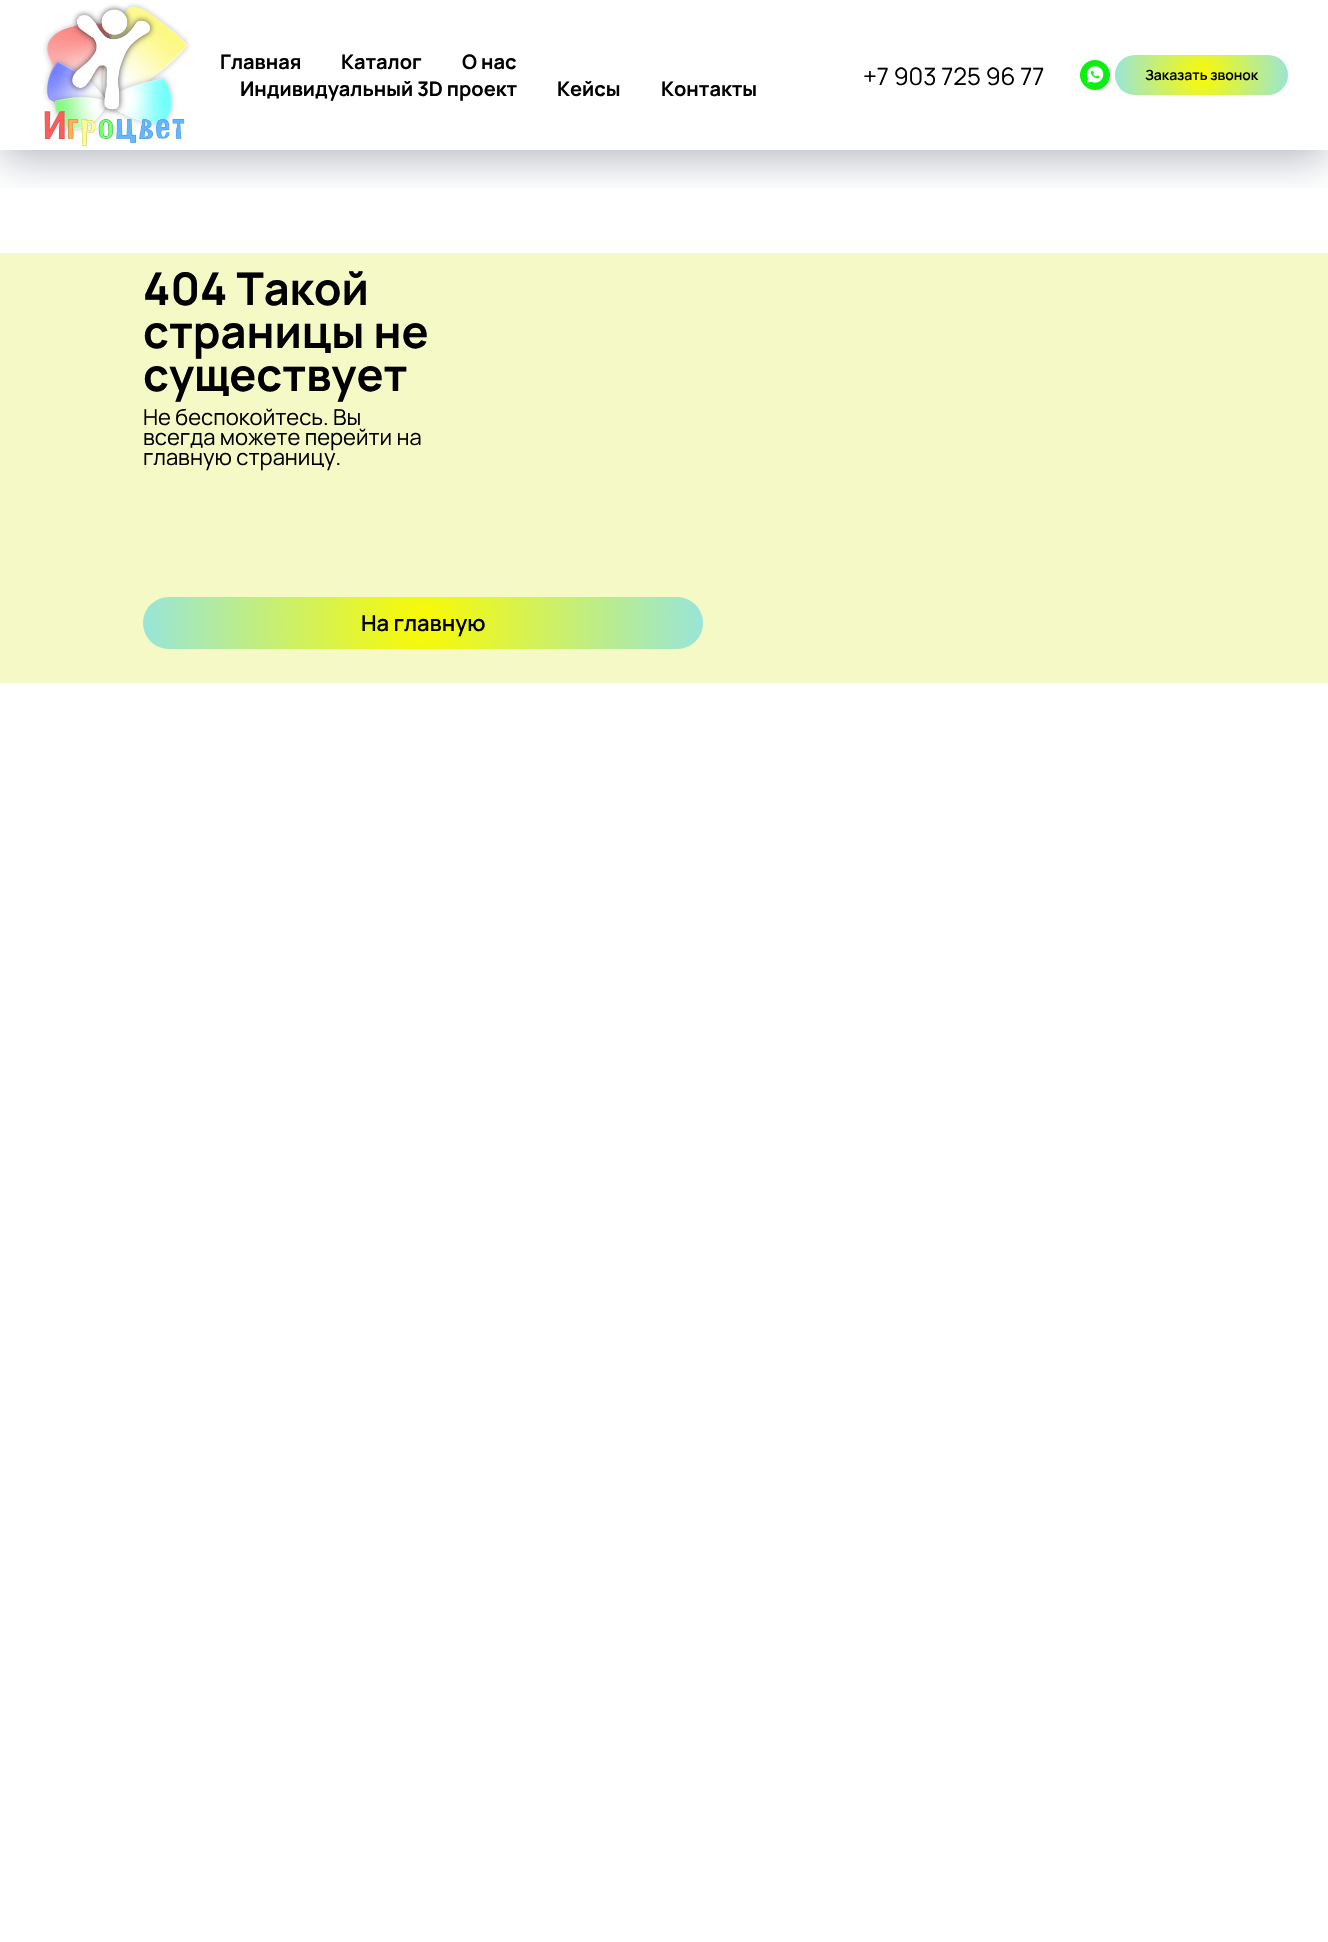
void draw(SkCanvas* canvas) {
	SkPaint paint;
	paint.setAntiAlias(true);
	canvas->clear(0xffffffff);
	canvas->save();
	canvas->clipRect(SkRect::MakeXYWH(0, 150, 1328, 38));
	paint.setColor(0x4d000b30);
	paint.setMaskFilter(SkMaskFilter::MakeBlur(kNormal_SkBlurStyle, 20));
	canvas->drawRect(SkRect::MakeXYWH(2, 12, 1324, 146), paint);
	paint.setMaskFilter(nullptr);
	canvas->restore();
	canvas->drawImageRect(SkImages::DeferredFromEncodedData(SkData::MakeFromFileName("img1.png")), SkRect::MakeXYWH(43, 3, 147, 144), SkSamplingOptions());
	SkFont f1(fontMgr->matchFamilyStyle("Manrope", SkFontStyle::Bold()), 20);
	f1.setSubpixel(true);
	paint.setColor(0xff000000);
	canvas->drawString("Главная", 220, 69, f1, paint);
	canvas->drawString("Каталог", 341, 69, f1, paint);
	canvas->drawString("О нас", 462, 69, f1, paint);
	canvas->drawString("Индивидуальный 3D проект", 240, 96, f1, paint);
	canvas->drawString("Кейсы", 557, 96, f1, paint);
	canvas->drawString("Контакты", 661, 96, f1, paint);
	SkFont f2(fontMgr->matchFamilyStyle("Manrope", SkFontStyle::Normal()), 24);
	f2.setSubpixel(true);
	canvas->drawString("+7 903 725 96 77", 863, 85, f2, paint);
	canvas->drawImageRect(SkImages::DeferredFromEncodedData(SkData::MakeFromFileName("img2.png")), SkRect::MakeXYWH(1080, 60, 30, 30), SkSamplingOptions());
	{
		const SkColor colors[] = {0xfffbfa00, 0xff98e5d9};
		const float stops[] = {0, 1};
		paint.setShader(SkGradientShader::MakeRadial({1202, 75}, 89, colors, stops, 2, SkTileMode::kClamp));
		paint.setAlpha(255);
	}
	canvas->drawRoundRect(SkRect::MakeXYWH(1115, 55, 173, 40), 20, 20, paint);
	SkFont f3(fontMgr->matchFamilyStyle("Manrope", SkFontStyle(600, SkFontStyle::kNormal_Width, SkFontStyle::kUpright_Slant)), 14);
	f3.setSubpixel(true);
	paint.setShader(nullptr);
	paint.setColor(0xff000000);
	canvas->drawString("Заказать звонок", 1145, 80, f3, paint);
	paint.setColor(0xfff5f9c5);
	canvas->drawRect(SkRect::MakeXYWH(0, 253, 1328, 430), paint);
	SkFont f4(fontMgr->matchFamilyStyle("Manrope", SkFontStyle::Bold()), 45);
	f4.setSubpixel(true);
	paint.setColor(0xff000000);
	canvas->drawString("404 Такой", 143, 305, f4, paint);
	canvas->drawString("страницы не", 143, 348, f4, paint);
	canvas->drawString("существует", 143, 391, f4, paint);
	SkFont f5(fontMgr->matchFamilyStyle("Manrope", SkFontStyle::Normal()), 22);
	f5.setSubpixel(true);
	canvas->drawString("Не беспокойтесь. Вы", 143, 425, f5, paint);
	canvas->drawString("всегда можете перейти на", 143, 445, f5, paint);
	canvas->drawString("главную страницу.", 143, 465, f5, paint);
	{
		const SkColor colors[] = {0xfffbfa00, 0xff98e5d9};
		const float stops[] = {0, 1};
		paint.setShader(SkGradientShader::MakeRadial({423, 623}, 281, colors, stops, 2, SkTileMode::kClamp));
		paint.setAlpha(255);
	}
	canvas->drawRoundRect(SkRect::MakeXYWH(143, 597, 560, 52), 26, 26, paint);
	SkFont f6(fontMgr->matchFamilyStyle("Manrope", SkFontStyle(600, SkFontStyle::kNormal_Width, SkFontStyle::kUpright_Slant)), 22);
	f6.setSubpixel(true);
	paint.setShader(nullptr);
	paint.setColor(0xff000000);
	canvas->drawString("На главную", 361, 631, f6, paint);
}
